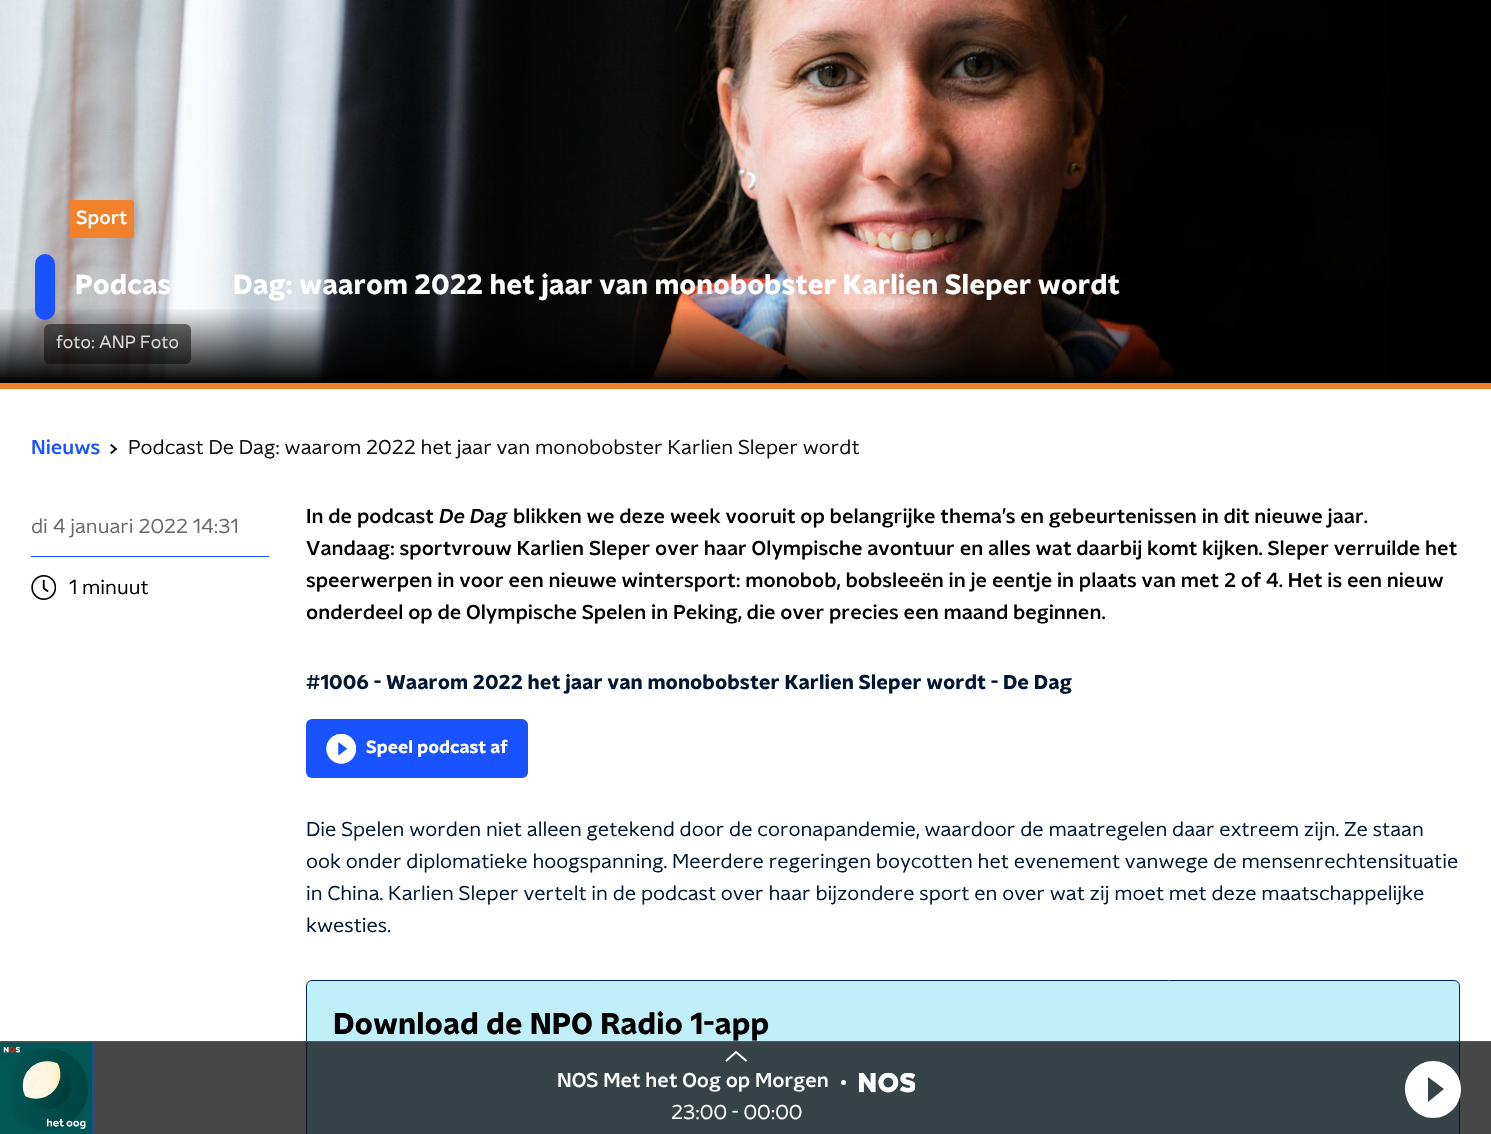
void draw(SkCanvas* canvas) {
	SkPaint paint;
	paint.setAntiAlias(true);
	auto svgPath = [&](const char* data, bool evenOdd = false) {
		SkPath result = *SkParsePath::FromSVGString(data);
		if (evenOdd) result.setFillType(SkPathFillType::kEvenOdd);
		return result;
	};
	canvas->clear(0xffffffff);
	paint.setColor(0xff000000);
	canvas->drawRect(SkRect::MakeXYWH(0, 0, 1491, 383), paint);
	paint.setColor(0xfff1812b);
	canvas->drawRect(SkRect::MakeXYWH(0, 383, 1491, 6), paint);
	canvas->drawImageRect(SkImages::DeferredFromEncodedData(SkData::MakeFromFileName("img1.png")), SkRect::MakeXYWH(0, 0, 1389, 383), SkSamplingOptions());
	{
		const SkColor colors[] = {0x00000000, 0xff000000};
		const float stops[] = {0, 1};
		const SkPoint ends[] = {{746, 307}, {746, 383}};
		paint.setShader(SkGradientShader::MakeLinear(ends, colors, stops, 2, SkTileMode::kClamp));
		paint.setAlpha(255);
	}
	canvas->drawRect(SkRect::MakeXYWH(0, 309, 1176, 74), paint);
	paint.setShader(nullptr);
	paint.setColor(0xfff1812b);
	canvas->drawRoundRect(SkRect::MakeXYWH(69, 200, 65, 38), 2.5, 2.5, paint);
	SkFont f1(fontMgr->matchFamilyStyle("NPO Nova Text", SkFontStyle(500, SkFontStyle::kNormal_Width, SkFontStyle::kUpright_Slant)), 19);
	f1.setSubpixel(true);
	paint.setColor(0xffffffff);
	canvas->drawString("Sport", 76, 224, f1, paint);
	paint.setColor(0xff1952ff);
	canvas->drawRoundRect(SkRect::MakeXYWH(35, 254, 20, 66), 10, 10, paint);
	SkFont f2(fontMgr->matchFamilyStyle("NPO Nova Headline", SkFontStyle::Bold()), 27.5);
	f2.setSubpixel(true);
	paint.setColor(0xffffffff);
	canvas->drawString("Podcas", 75, 294, f2, paint);
	canvas->drawString("Dag: waarom 2022 het jaar van monobobster Karlien Sleper wordt", 233, 294, f2, paint);
	paint.setColor(0x80000000);
	canvas->drawRoundRect(SkRect::MakeXYWH(44, 324, 147, 40), 6, 6, paint);
	SkFont f3(fontMgr->matchFamilyStyle("NPO Nova Text", SkFontStyle::Normal()), 17.5);
	f3.setSubpixel(true);
	paint.setColor(0xffe0dfdf);
	canvas->drawString("foto:", 56, 348, f3, paint);
	canvas->drawString("ANP Foto", 99, 348, f3, paint);
	SkFont f4(fontMgr->matchFamilyStyle("NPO Nova Text", SkFontStyle(500, SkFontStyle::kNormal_Width, SkFontStyle::kUpright_Slant)), 20);
	f4.setSubpixel(true);
	paint.setColor(0xff1952ff);
	canvas->drawString("Nieuws", 31, 454, f4, paint);
	canvas->drawImageRect(SkImages::DeferredFromEncodedData(SkData::MakeFromFileName("img2.png")), SkRect::MakeXYWH(110, 444, 8, 10), SkSamplingOptions());
	SkFont f5(fontMgr->matchFamilyStyle("NPO Nova Text", SkFontStyle::Normal()), 20);
	f5.setSubpixel(true);
	paint.setColor(0xff101010);
	canvas->drawString("Podcast De Dag: waarom 2022 het jaar van monobobster Karlien Sleper wordt", 128, 454, f5, paint);
	paint.setColor(0xff6a6a6a);
	canvas->drawString("di 4 januari 2022 14:31", 31, 533, f5, paint);
	paint.setColor(0xff1952ff);
	canvas->drawRect(SkRect::MakeXYWH(31, 556, 238, 1), paint);
	canvas->drawImageRect(SkImages::DeferredFromEncodedData(SkData::MakeFromFileName("img3.png")), SkRect::MakeXYWH(31, 575, 25, 25), SkSamplingOptions());
	paint.setColor(0xff000000);
	canvas->drawString("1 minuut", 69, 594, f5, paint);
	canvas->drawString("In de podcast", 306, 523, f4, paint);
	SkFont f6(fontMgr->matchFamilyStyle("NPO Nova Text", SkFontStyle(500, SkFontStyle::kNormal_Width, SkFontStyle::kItalic_Slant)), 20);
	f6.setSubpixel(true);
	canvas->drawString("De Dag", 439, 523, f6, paint);
	canvas->drawString("blikken we deze week vooruit op belangrijke thema’s en gebeurtenissen in dit nieuwe jaar.", 513, 523, f4, paint);
	canvas->drawString("Vandaag: sportvrouw Karlien Sleper over haar Olympische avontuur en alles wat daarbij komt kijken. Sleper verruilde het", 306, 555, f4, paint);
	canvas->drawString("speerwerpen in voor een nieuwe wintersport: monobob, bobsleeën in je eentje in plaats van met 2 of 4. Het is een nieuw", 306, 587, f4, paint);
	canvas->drawString("onderdeel op de Olympische Spelen in Peking, die over precies een maand beginnen.", 306, 619, f4, paint);
	SkFont f7(fontMgr->matchFamilyStyle("NPO Nova Headline", SkFontStyle::Bold()), 20);
	f7.setSubpixel(true);
	paint.setColor(0xff021833);
	canvas->drawString("#1006 - Waarom 2022 het jaar van monobobster Karlien Sleper wordt - De Dag", 306, 689, f7, paint);
	paint.setColor(0xff1952ff);
	canvas->drawRoundRect(SkRect::MakeXYWH(306, 719, 222, 59), 6, 6, paint);
	canvas->drawImageRect(SkImages::DeferredFromEncodedData(SkData::MakeFromFileName("img4.png")), SkRect::MakeXYWH(326, 734, 30, 30), SkSamplingOptions());
	SkFont f8(fontMgr->matchFamilyStyle("NPO Nova Headline", SkFontStyle::Bold()), 17.5);
	f8.setSubpixel(true);
	paint.setColor(0xffffffff);
	canvas->drawString("Speel podcast af", 366, 753, f8, paint);
	paint.setColor(0xff021833);
	canvas->drawString("Die Spelen worden niet alleen getekend door de coronapandemie, waardoor de maatregelen daar extreem zijn. Ze staan", 306, 836, f5, paint);
	canvas->drawString("ook onder diplomatieke hoogspanning. Meerdere regeringen boycotten het evenement vanwege de mensenrechtensituatie", 306, 868, f5, paint);
	canvas->drawString("in China. Karlien Sleper vertelt in de podcast over haar bijzondere sport en over wat zij moet met deze maatschappelijke", 306, 900, f5, paint);
	canvas->drawString("kwesties.", 306, 932, f5, paint);
	paint.setColor(0xffc0eef9);
	canvas->drawRoundRect(SkRect::MakeXYWH(306.5, 980.5, 1153, 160), 5.5, 5.5, paint);
	paint.setStroke(true);
	paint.setStrokeWidth(1);
	paint.setColor(0xff002964);
	canvas->drawRoundRect(SkRect::MakeXYWH(306.5, 980.5, 1153, 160), 5.5, 5.5, paint);
	SkFont f9(fontMgr->matchFamilyStyle("NPO Nova Headline", SkFontStyle::Bold()), 30);
	f9.setSubpixel(true);
	paint.setStroke(false);
	paint.setColor(0xff000000);
	canvas->drawString("Download de NPO Radio 1-app", 333, 1034, f9, paint);
	paint.setColor(0xbf090909);
	canvas->drawRect(SkRect::MakeXYWH(0, 1041, 1491, 93), paint);
	paint.setColor(0xa65f5f5f);
	canvas->drawRect(SkRect::MakeXYWH(0, 1041, 1491, 1), paint);
	paint.setColor(0xff1952ff);
	canvas->drawRect(SkRect::MakeXYWH(92, 1043, 1, 91), paint);
	canvas->drawImageRect(SkImages::DeferredFromEncodedData(SkData::MakeFromFileName("img5.png")), SkRect::MakeXYWH(0, 1042, 93, 92), SkSamplingOptions());
	paint.setStroke(true);
	paint.setStrokeWidth(2);
	paint.setColor(0xffffffff);
	canvas->drawPath(svgPath("M746.5 1061L736 1052L726 1061"), paint);
	paint.setStroke(false);
	canvas->drawString("NOS Met het Oog op Morgen", 557, 1087, f4, paint);
	canvas->drawCircle(843.5, 1082.5, 2.5, paint);
	canvas->drawImageRect(SkImages::DeferredFromEncodedData(SkData::MakeFromFileName("img6.png")), SkRect::MakeXYWH(859, 1073, 56, 20), SkSamplingOptions());
	canvas->drawString("23:00 - 00:00", 671, 1119, f5, paint);
	canvas->drawPath(svgPath("M1433 1061C1418 1061 1405 1074 1405 1089C1405 1105 1418 1118 1433 1118C1449 1118 1461 1105 1461 1089C1461 1074 1449 1061 1433 1061ZM1428 1102V1077L1444 1089Z"), paint);
}
